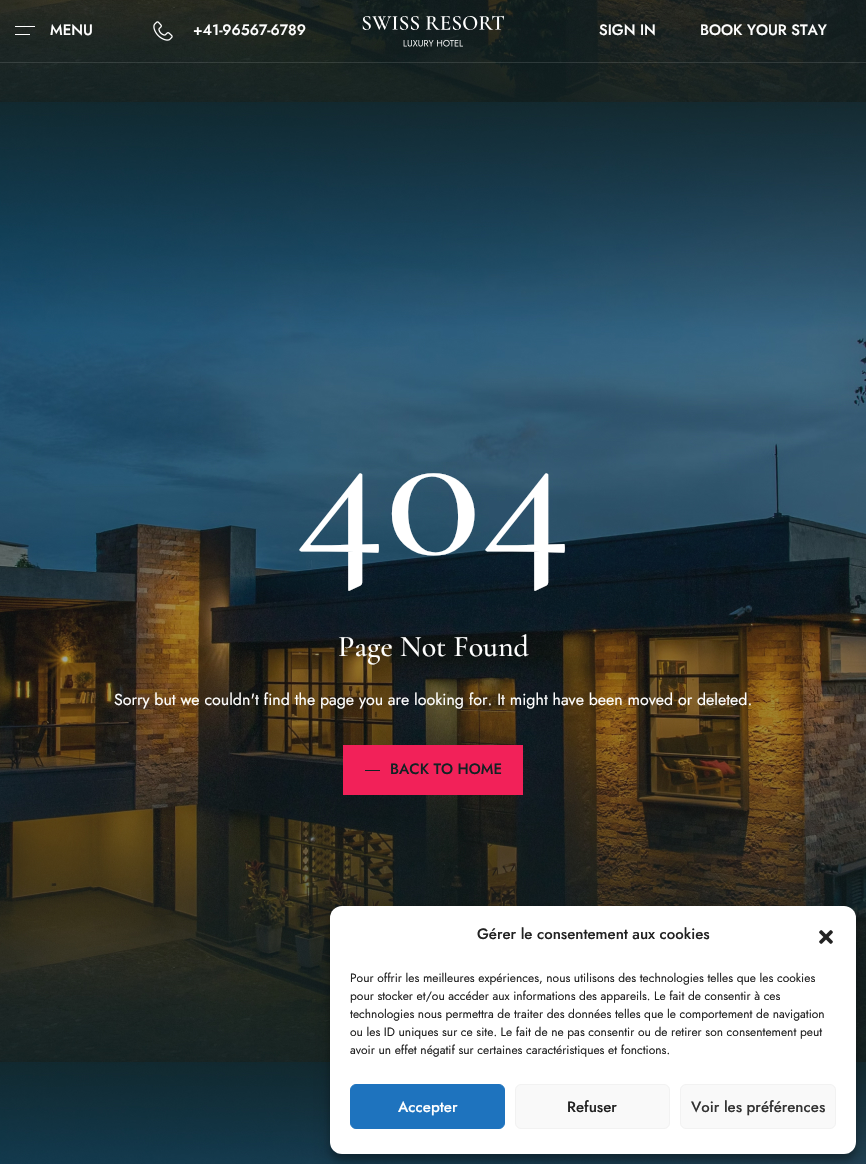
void draw(SkCanvas* canvas) {
	SkPaint paint;
	paint.setAntiAlias(true);
	canvas->clear(0xffffffff);
	canvas->drawImageRect(SkImages::DeferredFromEncodedData(SkData::MakeFromFileName("img3.png")), SkRect::MakeXYWH(0, 0, 866, 1164), SkSamplingOptions());
	paint.setColor(0x1fffffff);
	canvas->drawRect(SkRect::MakeXYWH(0, 62, 866, 1), paint);
	paint.setColor(0xffffffff);
	canvas->drawRect(SkRect::MakeXYWH(15, 26, 20, 1), paint);
	canvas->drawRect(SkRect::MakeXYWH(15, 34, 15, 1), paint);
	SkFont f1(fontMgr->matchFamilyStyle("Jost", SkFontStyle(500, SkFontStyle::kNormal_Width, SkFontStyle::kUpright_Slant)), 15);
	f1.setSubpixel(true);
	canvas->drawString("MENU", 50, 35, f1, paint);
	canvas->drawImageRect(SkImages::DeferredFromEncodedData(SkData::MakeFromFileName("img1.png")), SkRect::MakeXYWH(153, 21, 20, 20), SkSamplingOptions());
	canvas->drawString("+41-96567-6789", 193, 35, f1, paint);
	canvas->drawImageRect(SkImages::DeferredFromEncodedData(SkData::MakeFromFileName("img2.png")), SkRect::MakeXYWH(362, 15, 142, 32), SkSamplingOptions());
	canvas->drawString("SIGN IN", 599, 35, f1, paint);
	canvas->drawString("BOOK YOUR STAY", 700, 35, f1, paint);
	SkFont f2(fontMgr->matchFamilyStyle("Cormorant Garamond", SkFontStyle(500, SkFontStyle::kNormal_Width, SkFontStyle::kUpright_Slant)), 200);
	f2.setSubpixel(true);
	canvas->drawString("404", 295, 553, f2, paint);
	SkFont f3(fontMgr->matchFamilyStyle("Cormorant Garamond", SkFontStyle(500, SkFontStyle::kNormal_Width, SkFontStyle::kUpright_Slant)), 30);
	f3.setSubpixel(true);
	canvas->drawString("Page Not Found", 338, 656, f3, paint);
	SkFont f4(fontMgr->matchFamilyStyle("Jost", SkFontStyle::Normal()), 16);
	f4.setSubpixel(true);
	canvas->drawString("Sorry but we couldn't find the page you are looking for. It might have been moved or deleted.", 114, 705, f4, paint);
	paint.setColor(0xfff22159);
	canvas->drawRect(SkRect::MakeXYWH(343, 745, 180, 50), paint);
	paint.setColor(0xff122223);
	canvas->drawRect(SkRect::MakeXYWH(365, 770, 15, 1), paint);
	canvas->drawString("BACK TO HOME", 390, 774, f1, paint);
	paint.setColor(0x3b000000);
	paint.setMaskFilter(SkMaskFilter::MakeBlur(kNormal_SkBlurStyle, 3));
	canvas->drawRoundRect(SkRect::MakeXYWH(330, 912, 526, 248), 12, 12, paint);
	paint.setMaskFilter(nullptr);
	paint.setColor(0x30000000);
	paint.setMaskFilter(SkMaskFilter::MakeBlur(kNormal_SkBlurStyle, 10));
	canvas->drawRoundRect(SkRect::MakeXYWH(330, 916, 526, 248), 12, 12, paint);
	paint.setMaskFilter(nullptr);
	paint.setColor(0xffffffff);
	canvas->drawRoundRect(SkRect::MakeXYWH(330, 906, 526, 248), 12, 12, paint);
	paint.setColor(0xff222222);
	canvas->drawString("Gérer le consentement aux cookies", 477, 939, f1, paint);
	canvas->drawImageRect(SkImages::DeferredFromEncodedData(SkData::MakeFromFileName("img4.png")), SkRect::MakeXYWH(819, 930, 14, 14), SkSamplingOptions());
	SkFont f5(fontMgr->matchFamilyStyle("Jost", SkFontStyle::Normal()), 12);
	f5.setSubpixel(true);
	canvas->drawString("Pour offrir les meilleures expériences, nous utilisons des technologies telles que les cookies", 350, 982, f5, paint);
	canvas->drawString("pour stocker et/ou accéder aux informations des appareils. Le fait de consentir à ces", 350, 1000, f5, paint);
	canvas->drawString("technologies nous permettra de traiter des données telles que le comportement de navigation", 350, 1018, f5, paint);
	canvas->drawString("ou les ID uniques sur ce site. Le fait de ne pas consentir ou de retirer son consentement peut", 350, 1036, f5, paint);
	canvas->drawString("avoir un effet négatif sur certaines caractéristiques et fonctions.", 350, 1054, f5, paint);
	paint.setColor(0xff1e73be);
	canvas->drawRoundRect(SkRect::MakeXYWH(350.5, 1084.5, 154, 44), 5.5, 5.5, paint);
	paint.setStroke(true);
	paint.setStrokeWidth(1);
	canvas->drawRoundRect(SkRect::MakeXYWH(350.5, 1084.5, 154, 44), 5.5, 5.5, paint);
	paint.setStroke(false);
	paint.setColor(0xffffffff);
	canvas->drawString("Accepter", 398, 1112, f1, paint);
	paint.setColor(0xfff9f9f9);
	canvas->drawRoundRect(SkRect::MakeXYWH(515.5, 1084.5, 154, 44), 5.5, 5.5, paint);
	paint.setStroke(true);
	paint.setColor(0xfff2f2f2);
	canvas->drawRoundRect(SkRect::MakeXYWH(515.5, 1084.5, 154, 44), 5.5, 5.5, paint);
	paint.setStroke(false);
	paint.setColor(0xff222222);
	canvas->drawString("Refuser", 567, 1112, f1, paint);
	paint.setColor(0xfff9f9f9);
	canvas->drawRoundRect(SkRect::MakeXYWH(680.5, 1084.5, 155, 44), 5.5, 5.5, paint);
	paint.setStroke(true);
	paint.setColor(0xfff2f2f2);
	canvas->drawRoundRect(SkRect::MakeXYWH(680.5, 1084.5, 155, 44), 5.5, 5.5, paint);
	paint.setStroke(false);
	paint.setColor(0xff333333);
	canvas->drawString("Voir les préférences", 691, 1112, f1, paint);
}
